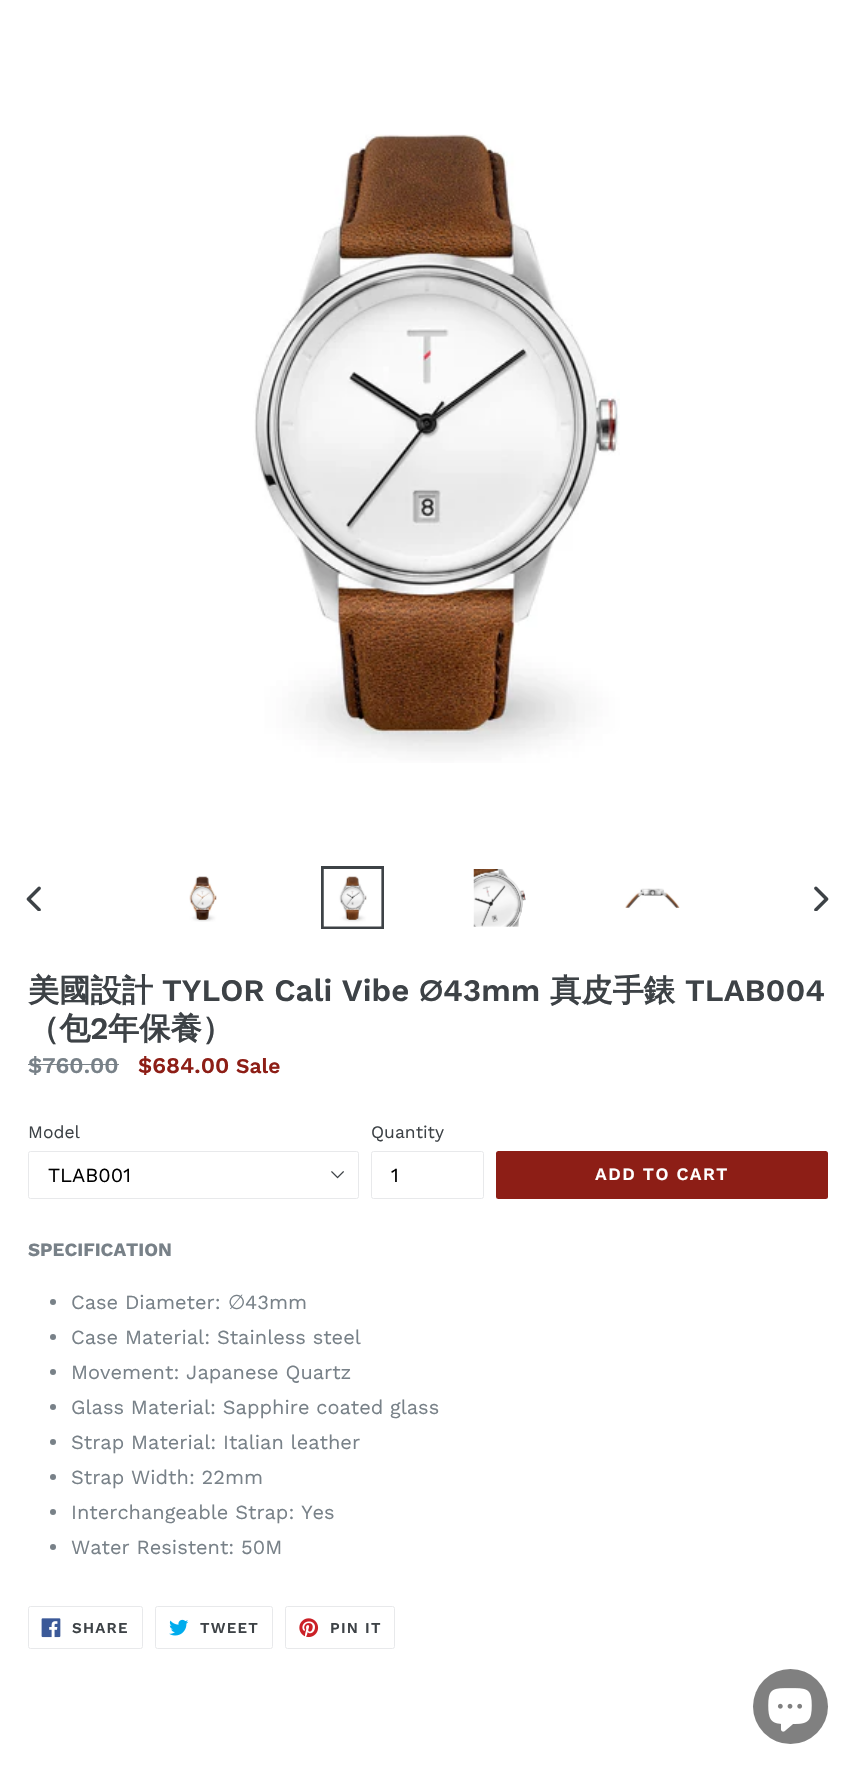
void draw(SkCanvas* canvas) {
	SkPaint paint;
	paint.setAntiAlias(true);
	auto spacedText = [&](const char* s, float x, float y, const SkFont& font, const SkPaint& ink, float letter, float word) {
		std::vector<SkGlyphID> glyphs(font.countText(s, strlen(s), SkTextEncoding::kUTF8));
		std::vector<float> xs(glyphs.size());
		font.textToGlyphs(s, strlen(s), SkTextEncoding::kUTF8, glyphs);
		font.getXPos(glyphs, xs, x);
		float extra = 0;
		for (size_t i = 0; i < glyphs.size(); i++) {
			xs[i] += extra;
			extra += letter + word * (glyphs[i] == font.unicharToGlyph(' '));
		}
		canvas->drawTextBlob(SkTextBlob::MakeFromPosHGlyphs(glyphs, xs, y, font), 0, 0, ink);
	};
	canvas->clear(0xffffffff);
	canvas->drawImageRect(SkImages::DeferredFromEncodedData(SkData::MakeFromFileName("img1.png")), SkRect::MakeXYWH(253, 134, 367, 629), SkSamplingOptions());
	canvas->drawImageRect(SkImages::DeferredFromEncodedData(SkData::MakeFromFileName("img2.png")), SkRect::MakeXYWH(26, 886, 15, 25), SkSamplingOptions());
	canvas->drawImageRect(SkImages::DeferredFromEncodedData(SkData::MakeFromFileName("img3.png")), SkRect::MakeXYWH(189, 876, 28, 46), SkSamplingOptions());
	paint.setStroke(true);
	paint.setStrokeWidth(3);
	paint.setColor(0xff3d4246);
	canvas->drawRect(SkRect::MakeXYWH(322.5, 867.5, 60, 60), paint);
	canvas->drawImageRect(SkImages::DeferredFromEncodedData(SkData::MakeFromFileName("img4.png")), SkRect::MakeXYWH(323, 869, 59, 58), SkSamplingOptions());
	canvas->drawImageRect(SkImages::DeferredFromEncodedData(SkData::MakeFromFileName("img5.png")), SkRect::MakeXYWH(473, 869, 53, 58), SkSamplingOptions());
	canvas->drawImageRect(SkImages::DeferredFromEncodedData(SkData::MakeFromFileName("img6.png")), SkRect::MakeXYWH(625, 888, 55, 20), SkSamplingOptions());
	canvas->drawImageRect(SkImages::DeferredFromEncodedData(SkData::MakeFromFileName("img7.png")), SkRect::MakeXYWH(814, 886, 15, 25), SkSamplingOptions());
	SkFont f1(fontMgr->matchFamilyStyle("WenQuanYi Zen Hei", SkFontStyle::Bold()), 31.25);
	f1.setSubpixel(true);
	paint.setStroke(false);
	canvas->drawString("美國設計", 28, 1001, f1, paint);
	SkFont f2(fontMgr->matchFamilyStyle("Work Sans", SkFontStyle(600, SkFontStyle::kNormal_Width, SkFontStyle::kUpright_Slant)), 31.25);
	f2.setSubpixel(true);
	canvas->drawString("TYLOR Cali Vibe", 162, 1001, f2, paint);
	SkFont f3(fontMgr->matchFamilyStyle("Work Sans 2", SkFontStyle(600, SkFontStyle::kNormal_Width, SkFontStyle::kUpright_Slant)), 31.25);
	f3.setSubpixel(true);
	canvas->drawString("∅", 419, 1001, f3, paint);
	canvas->drawString("43mm", 443, 1001, f2, paint);
	canvas->drawString("真皮手錶", 550, 1001, f1, paint);
	canvas->drawString("TLAB004", 685, 1001, f2, paint);
	canvas->drawString("（包", 28, 1039, f1, paint);
	canvas->drawString("2", 90, 1039, f2, paint);
	canvas->drawString("年保養）", 108, 1039, f1, paint);
	SkFont f4(fontMgr->matchFamilyStyle("Work Sans", SkFontStyle(600, SkFontStyle::kNormal_Width, SkFontStyle::kUpright_Slant)), 22.5);
	f4.setSubpixel(true);
	paint.setColor(0xff788188);
	canvas->drawString("$760.00", 28, 1073, f4, paint);
	canvas->drawRect(SkRect::MakeXYWH(28, 1064, 91, 1), paint);
	paint.setColor(0xff8d1e16);
	canvas->drawString("$684.00", 138, 1073, f4, paint);
	SkFont f5(fontMgr->matchFamilyStyle("Work Sans", SkFontStyle(600, SkFontStyle::kNormal_Width, SkFontStyle::kUpright_Slant)), 21);
	f5.setSubpixel(true);
	canvas->drawString("Sale", 236, 1073, f5, paint);
	SkFont f6(fontMgr->matchFamilyStyle("Work Sans", SkFontStyle::Normal()), 17.5);
	f6.setSubpixel(true);
	paint.setColor(0xff3d4246);
	canvas->drawString("Model", 28, 1138, f6, paint);
	canvas->drawImageRect(SkImages::DeferredFromEncodedData(SkData::MakeFromFileName("img8.png")), SkRect::MakeXYWH(331, 1171, 13, 8), SkSamplingOptions());
	paint.setStroke(true);
	paint.setStrokeWidth(1);
	paint.setColor(0xffe8e9eb);
	canvas->drawRoundRect(SkRect::MakeXYWH(28.5, 1151.5, 330, 47), 2, 2, paint);
	SkFont f7(fontMgr->matchFamilyStyle("Work Sans", SkFontStyle::Normal()), 20);
	f7.setSubpixel(true);
	paint.setStroke(false);
	paint.setColor(0xff000000);
	canvas->drawString("TLAB001", 48, 1182, f7, paint);
	paint.setColor(0xff3d4246);
	canvas->drawString("Quantity", 371, 1138, f6, paint);
	paint.setStroke(true);
	paint.setColor(0xffe8e9eb);
	canvas->drawRoundRect(SkRect::MakeXYWH(371.5, 1151.5, 112, 47), 2, 2, paint);
	paint.setStroke(false);
	paint.setColor(0xff000000);
	canvas->drawString("1", 391, 1182, f7, paint);
	paint.setColor(0xff8d1e16);
	canvas->drawRoundRect(SkRect::MakeXYWH(496, 1151, 332, 48), 2.5, 2.5, paint);
	SkFont f8(fontMgr->matchFamilyStyle("Work Sans", SkFontStyle(600, SkFontStyle::kNormal_Width, SkFontStyle::kUpright_Slant)), 17.5);
	f8.setSubpixel(true);
	paint.setColor(0xffffffff);
	spacedText("ADD TO CART", 595, 1180, f8, paint, 1.4, 0);
	SkFont f9(fontMgr->matchFamilyStyle("Work Sans", SkFontStyle::Bold()), 18.75);
	f9.setSubpixel(true);
	paint.setColor(0xff788188);
	canvas->drawString("SPECIFICATION", 28, 1256, f9, paint);
	canvas->drawCircle(53, 1302, 3, paint);
	canvas->drawString("Case Diameter:", 71, 1309, f7, paint);
	SkFont f10(fontMgr->matchFamilyStyle("DejaVu Sans", SkFontStyle::Normal()), 20);
	f10.setSubpixel(true);
	canvas->drawString("∅", 228, 1309, f10, paint);
	canvas->drawString("43mm", 245, 1309, f7, paint);
	canvas->drawCircle(53, 1337, 3, paint);
	canvas->drawString("Case Material: Stainless steel", 71, 1344, f7, paint);
	canvas->drawCircle(53, 1372, 3, paint);
	canvas->drawString("Movement: Japanese Quartz", 71, 1379, f7, paint);
	canvas->drawCircle(53, 1407, 3, paint);
	canvas->drawString("Glass Material: Sapphire coated glass", 71, 1414, f7, paint);
	canvas->drawCircle(53, 1442, 3, paint);
	canvas->drawString("Strap Material: Italian leather", 71, 1449, f7, paint);
	canvas->drawCircle(53, 1477, 3, paint);
	canvas->drawString("Strap Width: 22mm", 71, 1484, f7, paint);
	canvas->drawCircle(53, 1512, 3, paint);
	canvas->drawString("Interchangeable Strap: Yes", 71, 1519, f7, paint);
	canvas->drawCircle(53, 1547, 3, paint);
	canvas->drawString("Water Resistent: 50M", 71, 1554, f7, paint);
	paint.setStroke(true);
	paint.setColor(0xffe8e9eb);
	canvas->drawRoundRect(SkRect::MakeXYWH(28.5, 1606.5, 114, 42), 2, 2, paint);
	canvas->drawImageRect(SkImages::DeferredFromEncodedData(SkData::MakeFromFileName("img9.png")), SkRect::MakeXYWH(41, 1618, 20, 20), SkSamplingOptions());
	SkFont f11(fontMgr->matchFamilyStyle("Work Sans", SkFontStyle(600, SkFontStyle::kNormal_Width, SkFontStyle::kUpright_Slant)), 15);
	f11.setSubpixel(true);
	paint.setStroke(false);
	paint.setColor(0xff3d4246);
	spacedText("SHARE", 72, 1633, f11, paint, 1.25, 0);
	paint.setStroke(true);
	paint.setColor(0xffe8e9eb);
	canvas->drawRoundRect(SkRect::MakeXYWH(155.5, 1606.5, 117, 42), 2, 2, paint);
	canvas->drawImageRect(SkImages::DeferredFromEncodedData(SkData::MakeFromFileName("img10.png")), SkRect::MakeXYWH(169, 1619, 20, 17), SkSamplingOptions());
	paint.setStroke(false);
	paint.setColor(0xff3d4246);
	spacedText("TWEET", 200, 1633, f11, paint, 1.25, 0);
	paint.setStroke(true);
	paint.setColor(0xffe8e9eb);
	canvas->drawRoundRect(SkRect::MakeXYWH(285.5, 1606.5, 109, 42), 2, 2, paint);
	canvas->drawImageRect(SkImages::DeferredFromEncodedData(SkData::MakeFromFileName("img11.png")), SkRect::MakeXYWH(299, 1618, 20, 20), SkSamplingOptions());
	paint.setStroke(false);
	paint.setColor(0xff3d4246);
	spacedText("PIN IT", 330, 1633, f11, paint, 1.25, 0);
	paint.setColor(0xff808080);
	canvas->drawCircle(790.5, 1706.5, 37.5, paint);
	canvas->drawImageRect(SkImages::DeferredFromEncodedData(SkData::MakeFromFileName("img12.png")), SkRect::MakeXYWH(768, 1688, 44, 44), SkSamplingOptions());
}
